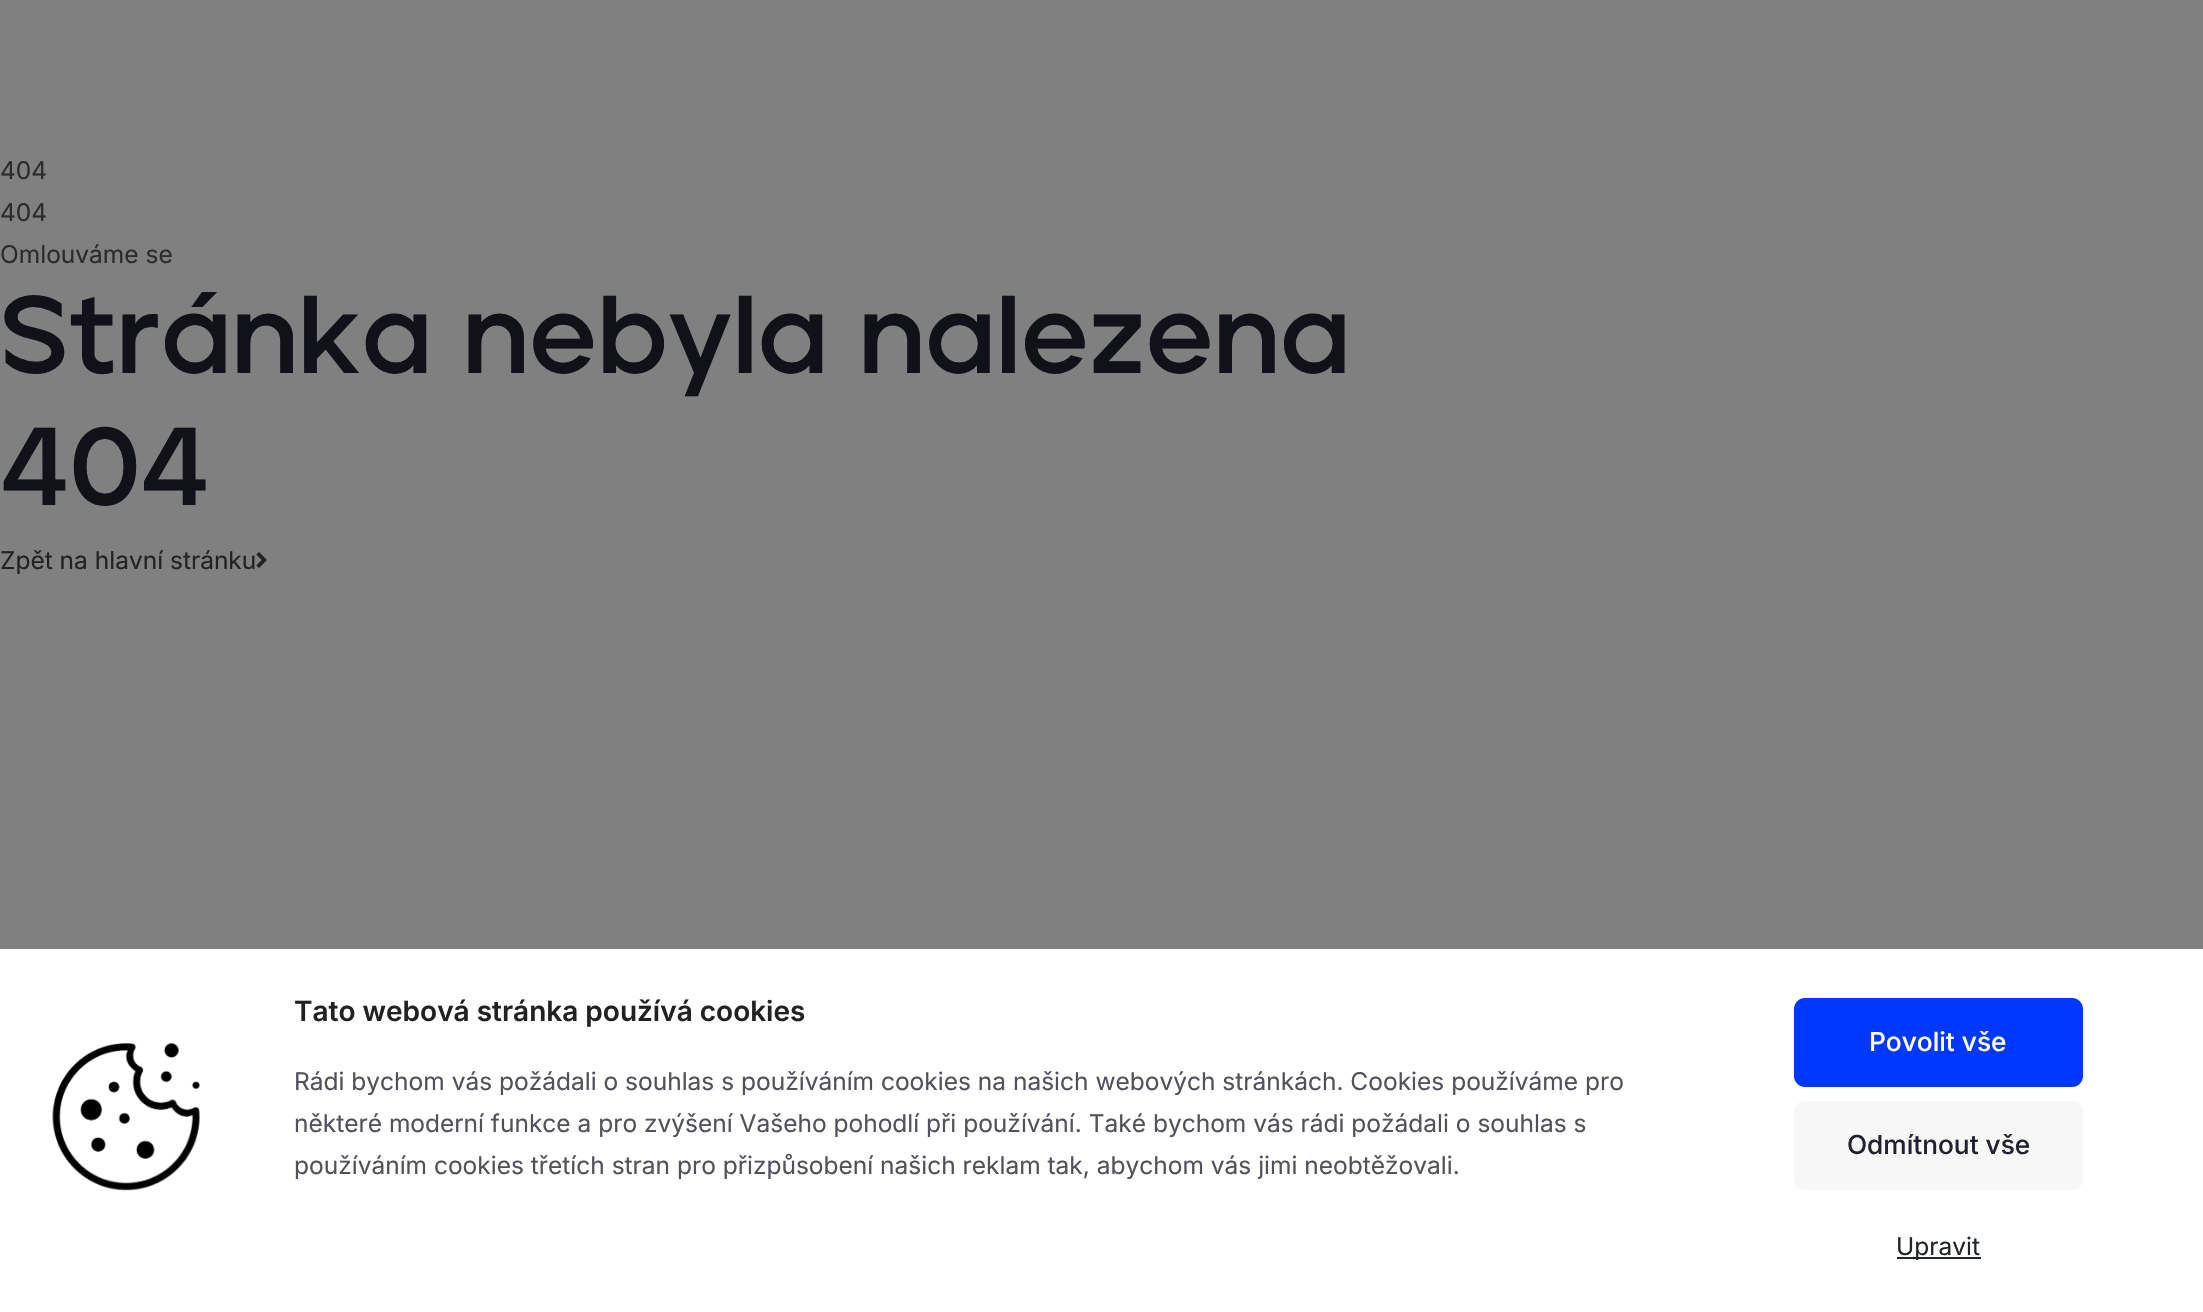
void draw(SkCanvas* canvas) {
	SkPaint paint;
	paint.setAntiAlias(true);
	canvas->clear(0xff808080);
	SkFont f1(fontMgr->matchFamilyStyle("Inter", SkFontStyle::Normal()), 24.5);
	f1.setSubpixel(true);
	paint.setColor(0xff2b2b2b);
	canvas->drawString("404", 0, 179, f1, paint);
	canvas->drawString("404", 0, 221, f1, paint);
	canvas->drawString("Omlouváme se", 0, 263, f1, paint);
	SkFont f2(fontMgr->matchFamilyStyle("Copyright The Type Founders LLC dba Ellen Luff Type", SkFontStyle::Bold()), 110.2);
	f2.setSubpixel(true);
	paint.setColor(0xff101119);
	canvas->drawString("Stránka nebyla nalezena", 0, 373, f2, paint);
	canvas->drawString("404", 0, 505, f2, paint);
	paint.setColor(0xff222222);
	canvas->drawString("Zpět na hlavní stránku", 0, 569, f1, paint);
	canvas->drawImageRect(SkImages::DeferredFromEncodedData(SkData::MakeFromFileName("img1.png")), SkRect::MakeXYWH(256, 552, 11, 16), SkSamplingOptions());
	paint.setColor(0xffffffff);
	canvas->drawRect(SkRect::MakeXYWH(0, 949, 2203, 363), paint);
	canvas->drawImageRect(SkImages::DeferredFromEncodedData(SkData::MakeFromFileName("img2.png")), SkRect::MakeXYWH(52, 1043, 148, 148), SkSamplingOptions());
	SkFont f3(fontMgr->matchFamilyStyle("Inter", SkFontStyle(600, SkFontStyle::kNormal_Width, SkFontStyle::kUpright_Slant)), 28);
	f3.setSubpixel(true);
	paint.setColor(0xff222222);
	canvas->drawString("Tato webová stránka používá cookies", 294, 1021, f3, paint);
	paint.setColor(0xff51515d);
	canvas->drawString("Rádi bychom vás požádali o souhlas s používáním cookies na našich webových stránkách. Cookies používáme pro", 294, 1090, f1, paint);
	canvas->drawString("některé moderní funkce a pro zvýšení Vašeho pohodlí při používání. Také bychom vás rádi požádali o souhlas s", 294, 1132, f1, paint);
	canvas->drawString("používáním cookies třetích stran pro přizpůsobení našich reklam tak, abychom vás jimi neobtěžovali.", 294, 1174, f1, paint);
	paint.setColor(0xff0038ff);
	canvas->drawRoundRect(SkRect::MakeXYWH(1794, 998, 289, 89), 11, 11, paint);
	SkFont f4(fontMgr->matchFamilyStyle("Inter", SkFontStyle(500, SkFontStyle::kNormal_Width, SkFontStyle::kUpright_Slant)), 26.25);
	f4.setSubpixel(true);
	paint.setColor(0xffffffff);
	canvas->drawString("Povolit vše", 1869, 1051, f4, paint);
	paint.setColor(0xfff7f7f7);
	canvas->drawRoundRect(SkRect::MakeXYWH(1794, 1101, 289, 89), 11, 11, paint);
	paint.setColor(0xff202131);
	canvas->drawString("Odmítnout vše", 1847, 1154, f4, paint);
	paint.setColor(0xff212529);
	canvas->drawRect(SkRect::MakeXYWH(1897, 1257, 84, 2), paint);
	canvas->drawString("Upravit", 1896, 1255, f1, paint);
}
